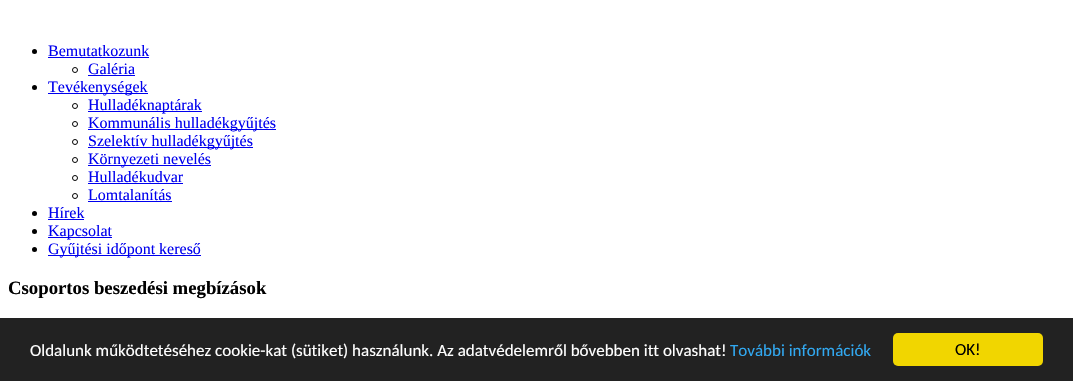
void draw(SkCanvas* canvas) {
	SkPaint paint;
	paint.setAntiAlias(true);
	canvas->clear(0xffffffff);
	paint.setColor(0xff000000);
	canvas->drawCircle(34.5, 51.5, 2.5, paint);
	SkFont f1(fontMgr->matchFamilyStyle("Liberation Serif", SkFontStyle::Normal()), 16);
	f1.setSubpixel(true);
	paint.setColor(0xff0000ee);
	canvas->drawString("Bemutatkozunk", 48, 56, f1, paint);
	canvas->drawRect(SkRect::MakeXYWH(48, 57, 101, 1), paint);
	paint.setStroke(true);
	paint.setStrokeWidth(1);
	paint.setColor(0xff000000);
	canvas->drawCircle(75, 70, 2.5, paint);
	paint.setStroke(false);
	paint.setColor(0xff0000ee);
	canvas->drawString("Galéria", 88, 74, f1, paint);
	canvas->drawRect(SkRect::MakeXYWH(88, 75, 47, 1), paint);
	paint.setColor(0xff000000);
	canvas->drawCircle(34.5, 87.5, 2.5, paint);
	paint.setColor(0xff0000ee);
	canvas->drawRect(SkRect::MakeXYWH(48, 93, 100, 1), paint);
	canvas->drawString("Tevékenységek", 48, 92, f1, paint);
	paint.setStroke(true);
	paint.setColor(0xff000000);
	canvas->drawCircle(75, 106, 2.5, paint);
	paint.setStroke(false);
	paint.setColor(0xff0000ee);
	canvas->drawRect(SkRect::MakeXYWH(88, 111, 114, 1), paint);
	canvas->drawString("Hulladéknaptárak", 88, 110, f1, paint);
	paint.setStroke(true);
	paint.setColor(0xff000000);
	canvas->drawCircle(75, 124, 2.5, paint);
	paint.setStroke(false);
	paint.setColor(0xff0000ee);
	canvas->drawRect(SkRect::MakeXYWH(88, 129, 188, 1), paint);
	canvas->drawString("Kommunális hulladékgyűjtés", 88, 128, f1, paint);
	paint.setStroke(true);
	paint.setColor(0xff000000);
	canvas->drawCircle(75, 142, 2.5, paint);
	paint.setStroke(false);
	paint.setColor(0xff0000ee);
	canvas->drawRect(SkRect::MakeXYWH(88, 147, 165, 1), paint);
	canvas->drawString("Szelektív hulladékgyűjtés", 88, 146, f1, paint);
	paint.setStroke(true);
	paint.setColor(0xff000000);
	canvas->drawCircle(75, 160, 2.5, paint);
	paint.setStroke(false);
	paint.setColor(0xff0000ee);
	canvas->drawRect(SkRect::MakeXYWH(88, 165, 123, 1), paint);
	canvas->drawString("Környezeti nevelés", 88, 164, f1, paint);
	paint.setStroke(true);
	paint.setColor(0xff000000);
	canvas->drawCircle(75, 178, 2.5, paint);
	paint.setStroke(false);
	paint.setColor(0xff0000ee);
	canvas->drawString("Hulladékudvar", 88, 182, f1, paint);
	canvas->drawRect(SkRect::MakeXYWH(88, 183, 95, 1), paint);
	paint.setStroke(true);
	paint.setColor(0xff000000);
	canvas->drawCircle(75, 196, 2.5, paint);
	paint.setStroke(false);
	paint.setColor(0xff0000ee);
	canvas->drawString("Lomtalanítás", 88, 200, f1, paint);
	canvas->drawRect(SkRect::MakeXYWH(88, 201, 84, 1), paint);
	paint.setColor(0xff000000);
	canvas->drawCircle(34.5, 213.5, 2.5, paint);
	paint.setColor(0xff0000ee);
	canvas->drawString("Hírek", 48, 218, f1, paint);
	canvas->drawRect(SkRect::MakeXYWH(48, 219, 36, 1), paint);
	paint.setColor(0xff000000);
	canvas->drawCircle(34.5, 231.5, 2.5, paint);
	paint.setColor(0xff0000ee);
	canvas->drawRect(SkRect::MakeXYWH(48, 237, 64, 1), paint);
	canvas->drawString("Kapcsolat", 48, 236, f1, paint);
	paint.setColor(0xff000000);
	canvas->drawCircle(34.5, 249.5, 2.5, paint);
	paint.setColor(0xff0000ee);
	canvas->drawRect(SkRect::MakeXYWH(48, 255, 153, 1), paint);
	canvas->drawString("Gyűjtési időpont kereső", 48, 254, f1, paint);
	SkFont f2(fontMgr->matchFamilyStyle("Liberation Serif", SkFontStyle::Bold()), 18.75);
	f2.setSubpixel(true);
	paint.setColor(0xff000000);
	canvas->drawString("Csoportos beszedési megbízások", 8, 294, f2, paint);
	paint.setColor(0xff222222);
	canvas->drawRect(SkRect::MakeXYWH(0, 318, 1073, 63), paint);
	SkFont f3(fontMgr->matchFamilyStyle("Carlito", SkFontStyle::Normal()), 17);
	f3.setSubpixel(true);
	paint.setColor(0xffffffff);
	canvas->drawString("Oldalunk működtetéséhez cookie-kat (sütiket) használunk. Az adatvédelemről bővebben itt olvashat!", 30, 356, f3, paint);
	paint.setColor(0xff31a8f0);
	canvas->drawString("További információk", 730, 356, f3, paint);
	paint.setColor(0xfff1d600);
	canvas->drawRoundRect(SkRect::MakeXYWH(893, 333, 150, 33), 5, 5, paint);
	paint.setColor(0xff000000);
	canvas->drawString("OK!", 955, 355, f3, paint);
}
